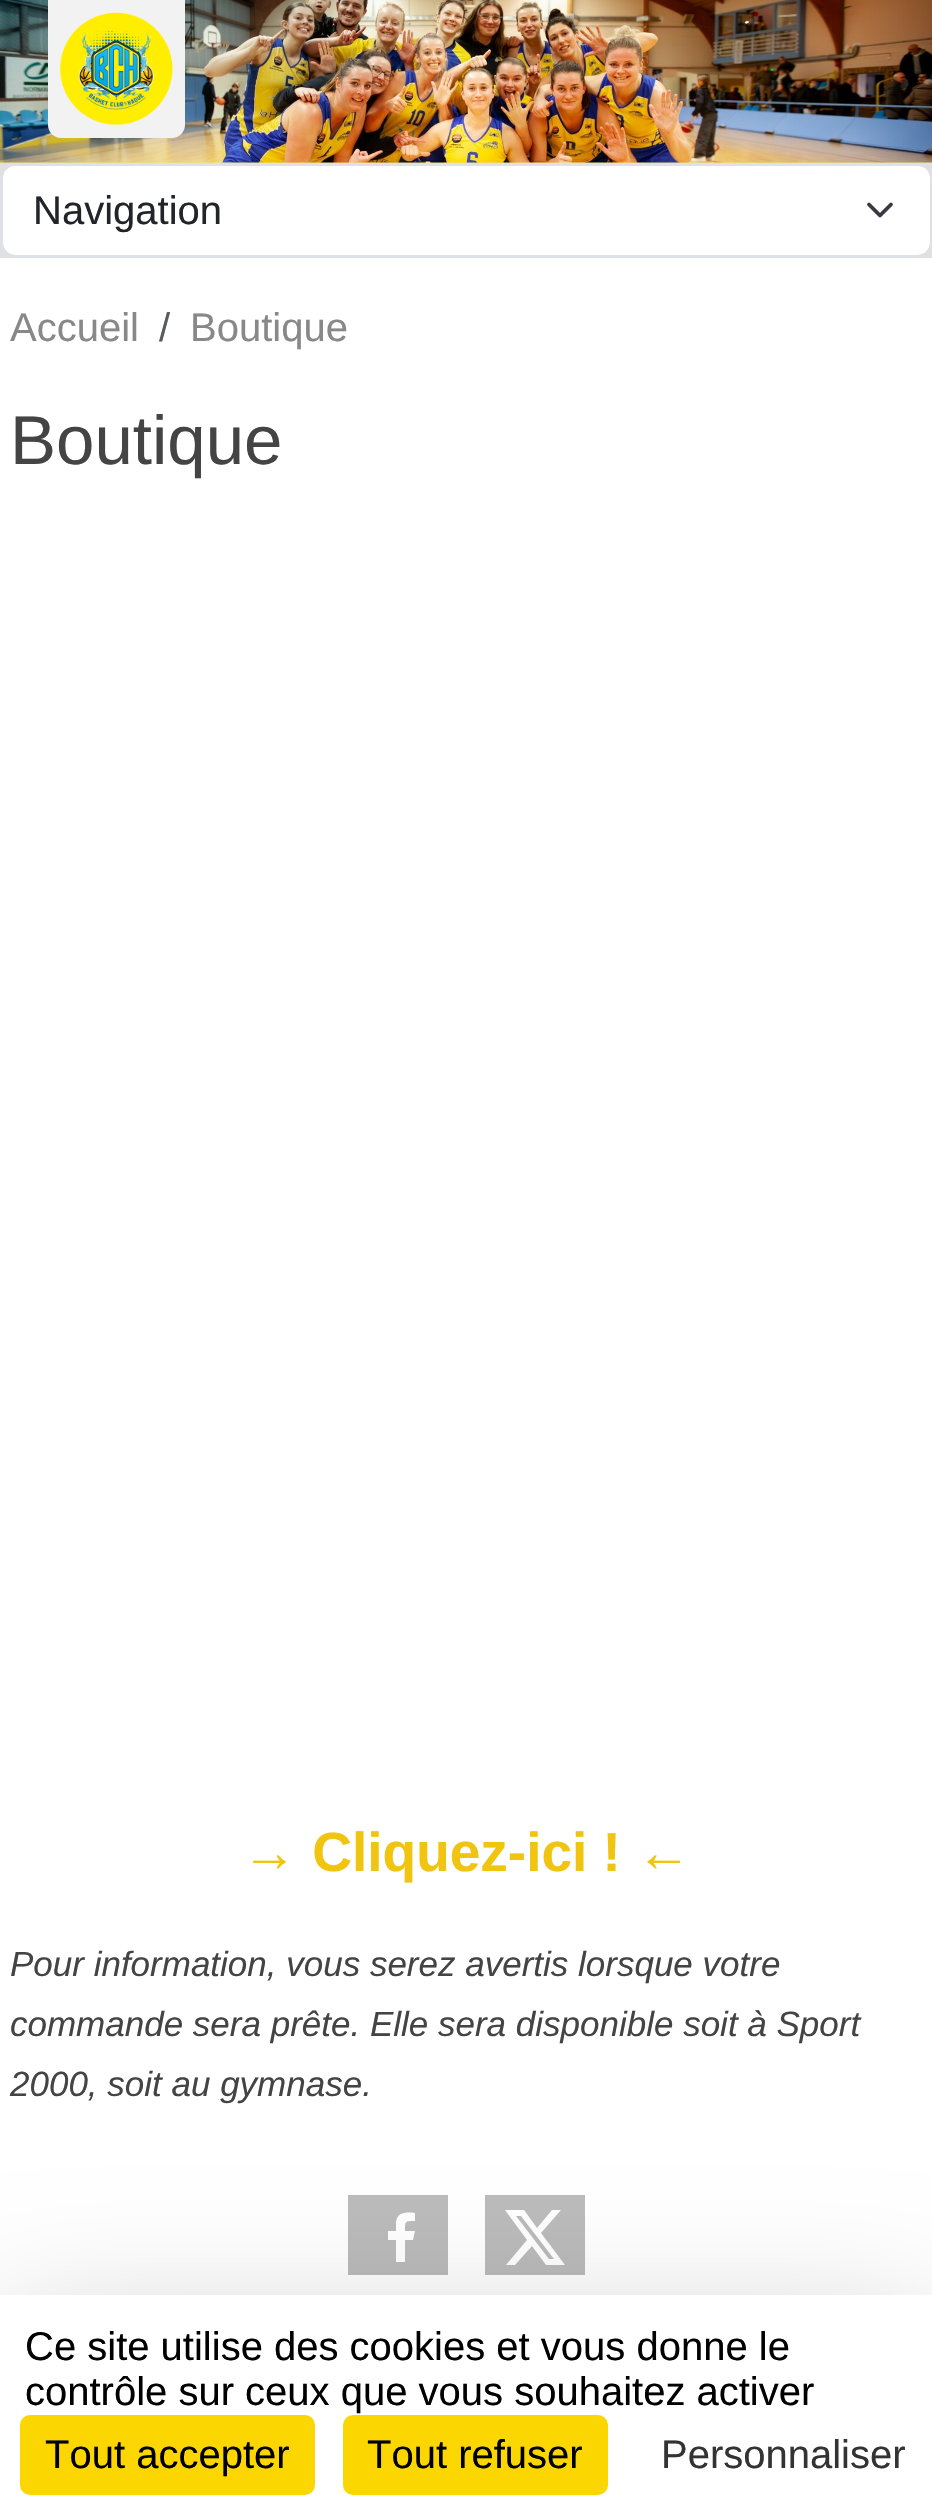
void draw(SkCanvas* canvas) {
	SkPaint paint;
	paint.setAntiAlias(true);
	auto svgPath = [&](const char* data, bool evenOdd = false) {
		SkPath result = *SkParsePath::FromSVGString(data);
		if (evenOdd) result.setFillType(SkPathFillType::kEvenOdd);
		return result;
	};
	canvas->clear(0xffffffff);
	paint.setColor(0xfff3dc9a);
	canvas->drawRect(SkRect::MakeXYWH(0, 162, 932, 1), paint);
	canvas->drawImageRect(SkImages::DeferredFromEncodedData(SkData::MakeFromFileName("img2.png")), SkRect::MakeXYWH(0, 0, 932, 163), SkSamplingOptions());
	paint.setColor(0xfff2f2f2);
	canvas->drawPath(svgPath("M48 0H185V125C185 132 179 138 172 138H61C54 138 48 132 48 125Z"), paint);
	canvas->drawImageRect(SkImages::DeferredFromEncodedData(SkData::MakeFromFileName("img1.png")), SkRect::MakeXYWH(60, 12, 113, 114), SkSamplingOptions());
	paint.setColor(0xffe0e0e0);
	canvas->drawRect(SkRect::MakeXYWH(0, 163, 932, 95), paint);
	paint.setColor(0xffffffff);
	canvas->drawRoundRect(SkRect::MakeXYWH(3, 165, 927, 90), 13, 13, paint);
	paint.setStroke(true);
	paint.setStrokeWidth(3.8);
	paint.setStrokeCap(SkPaint::kRound_Cap);
	paint.setStrokeJoin(SkPaint::kRound_Join);
	paint.setColor(0xff343a40);
	canvas->drawPath(svgPath("M869 204.5L880 215.5L891 204.5"), paint);
	paint.setStrokeWidth(3);
	paint.setStrokeCap(SkPaint::kButt_Cap);
	paint.setStrokeJoin(SkPaint::kMiter_Join);
	paint.setColor(0xffdee2e6);
	canvas->drawRoundRect(SkRect::MakeXYWH(1.5, 164.5, 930, 92), 13.5, 13.5, paint);
	SkFont f1(fontMgr->matchFamilyStyle("Liberation Sans", SkFontStyle::Normal()), 40);
	f1.setSubpixel(true);
	paint.setStroke(false);
	paint.setColor(0xff212529);
	canvas->drawString("Navigation", 33, 224, f1, paint);
	paint.setColor(0xff888888);
	canvas->drawString("Accueil", 10, 341, f1, paint);
	paint.setColor(0xff595c5f);
	canvas->drawString("/", 159, 341, f1, paint);
	paint.setColor(0xff888888);
	canvas->drawString("Boutique", 190, 341, f1, paint);
	SkFont f2(fontMgr->matchFamilyStyle("Liberation Sans", SkFontStyle::Normal()), 69);
	f2.setSubpixel(true);
	paint.setColor(0xff444444);
	canvas->drawString("Boutique", 10, 464, f2, paint);
	SkFont f3(fontMgr->matchFamilyStyle("Liberation Sans", SkFontStyle::Bold()), 55);
	f3.setSubpixel(true);
	paint.setColor(0xfff1c40f);
	canvas->drawString("→ Cliquez-ici ! ←", 242, 1871, f3, paint);
	SkFont f4(fontMgr->matchFamilyStyle("Liberation Sans", SkFontStyle::Italic()), 35);
	f4.setSubpixel(true);
	paint.setColor(0xff444444);
	canvas->drawString("Pour information, vous serez avertis lorsque votre", 10, 1976, f4, paint);
	canvas->drawString("commande sera prête. Elle sera disponible soit à Sport", 10, 2036, f4, paint);
	canvas->drawString("2000, soit au gymnase.", 10, 2096, f4, paint);
	paint.setColor(0xffbbbbbb);
	canvas->drawRect(SkRect::MakeXYWH(348, 2195, 100, 80), paint);
	paint.setColor(0xffffffff);
	canvas->drawPath(svgPath("M415 2213C407 2212 397 2212 396 2222V2231H388V2240H396V2262H405V2240H413L415 2231H405C405 2221 405 2221 415 2221Z", true), paint);
	paint.setColor(0xffbbbbbb);
	canvas->drawRect(SkRect::MakeXYWH(485, 2195, 100, 80), paint);
	paint.setColor(0xffffffff);
	canvas->drawPath(svgPath("M552 2210H561L541 2233L565 2265H546L532 2246L515 2265H506L527 2240L505 2210H524L537 2228ZM549 2259H554L521 2216H516Z"), paint);
	paint.setColor(0x40000000);
	paint.setMaskFilter(SkMaskFilter::MakeBlur(kNormal_SkBlurStyle, 75));
	canvas->drawRect(SkRect::MakeXYWH(0, 2345, 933, 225), paint);
	paint.setMaskFilter(nullptr);
	paint.setColor(0xffffffff);
	canvas->drawRect(SkRect::MakeXYWH(0, 2295, 932, 224), paint);
	paint.setColor(0xff000000);
	canvas->drawString("Ce site utilise des cookies et vous donne le", 25, 2360, f1, paint);
	canvas->drawString("contrôle sur ceux que vous souhaitez activer", 25, 2405, f1, paint);
	paint.setColor(0xfffbd600);
	canvas->drawRoundRect(SkRect::MakeXYWH(20, 2415, 295, 80), 10, 10, paint);
	paint.setColor(0xff000000);
	canvas->drawString("Tout accepter", 45, 2468, f1, paint);
	paint.setColor(0xfffbd600);
	canvas->drawRoundRect(SkRect::MakeXYWH(343, 2415, 265, 80), 10, 10, paint);
	paint.setColor(0xff000000);
	canvas->drawString("Tout refuser", 367, 2468, f1, paint);
	paint.setColor(0xff333333);
	canvas->drawString("Personnaliser", 661, 2468, f1, paint);
}
